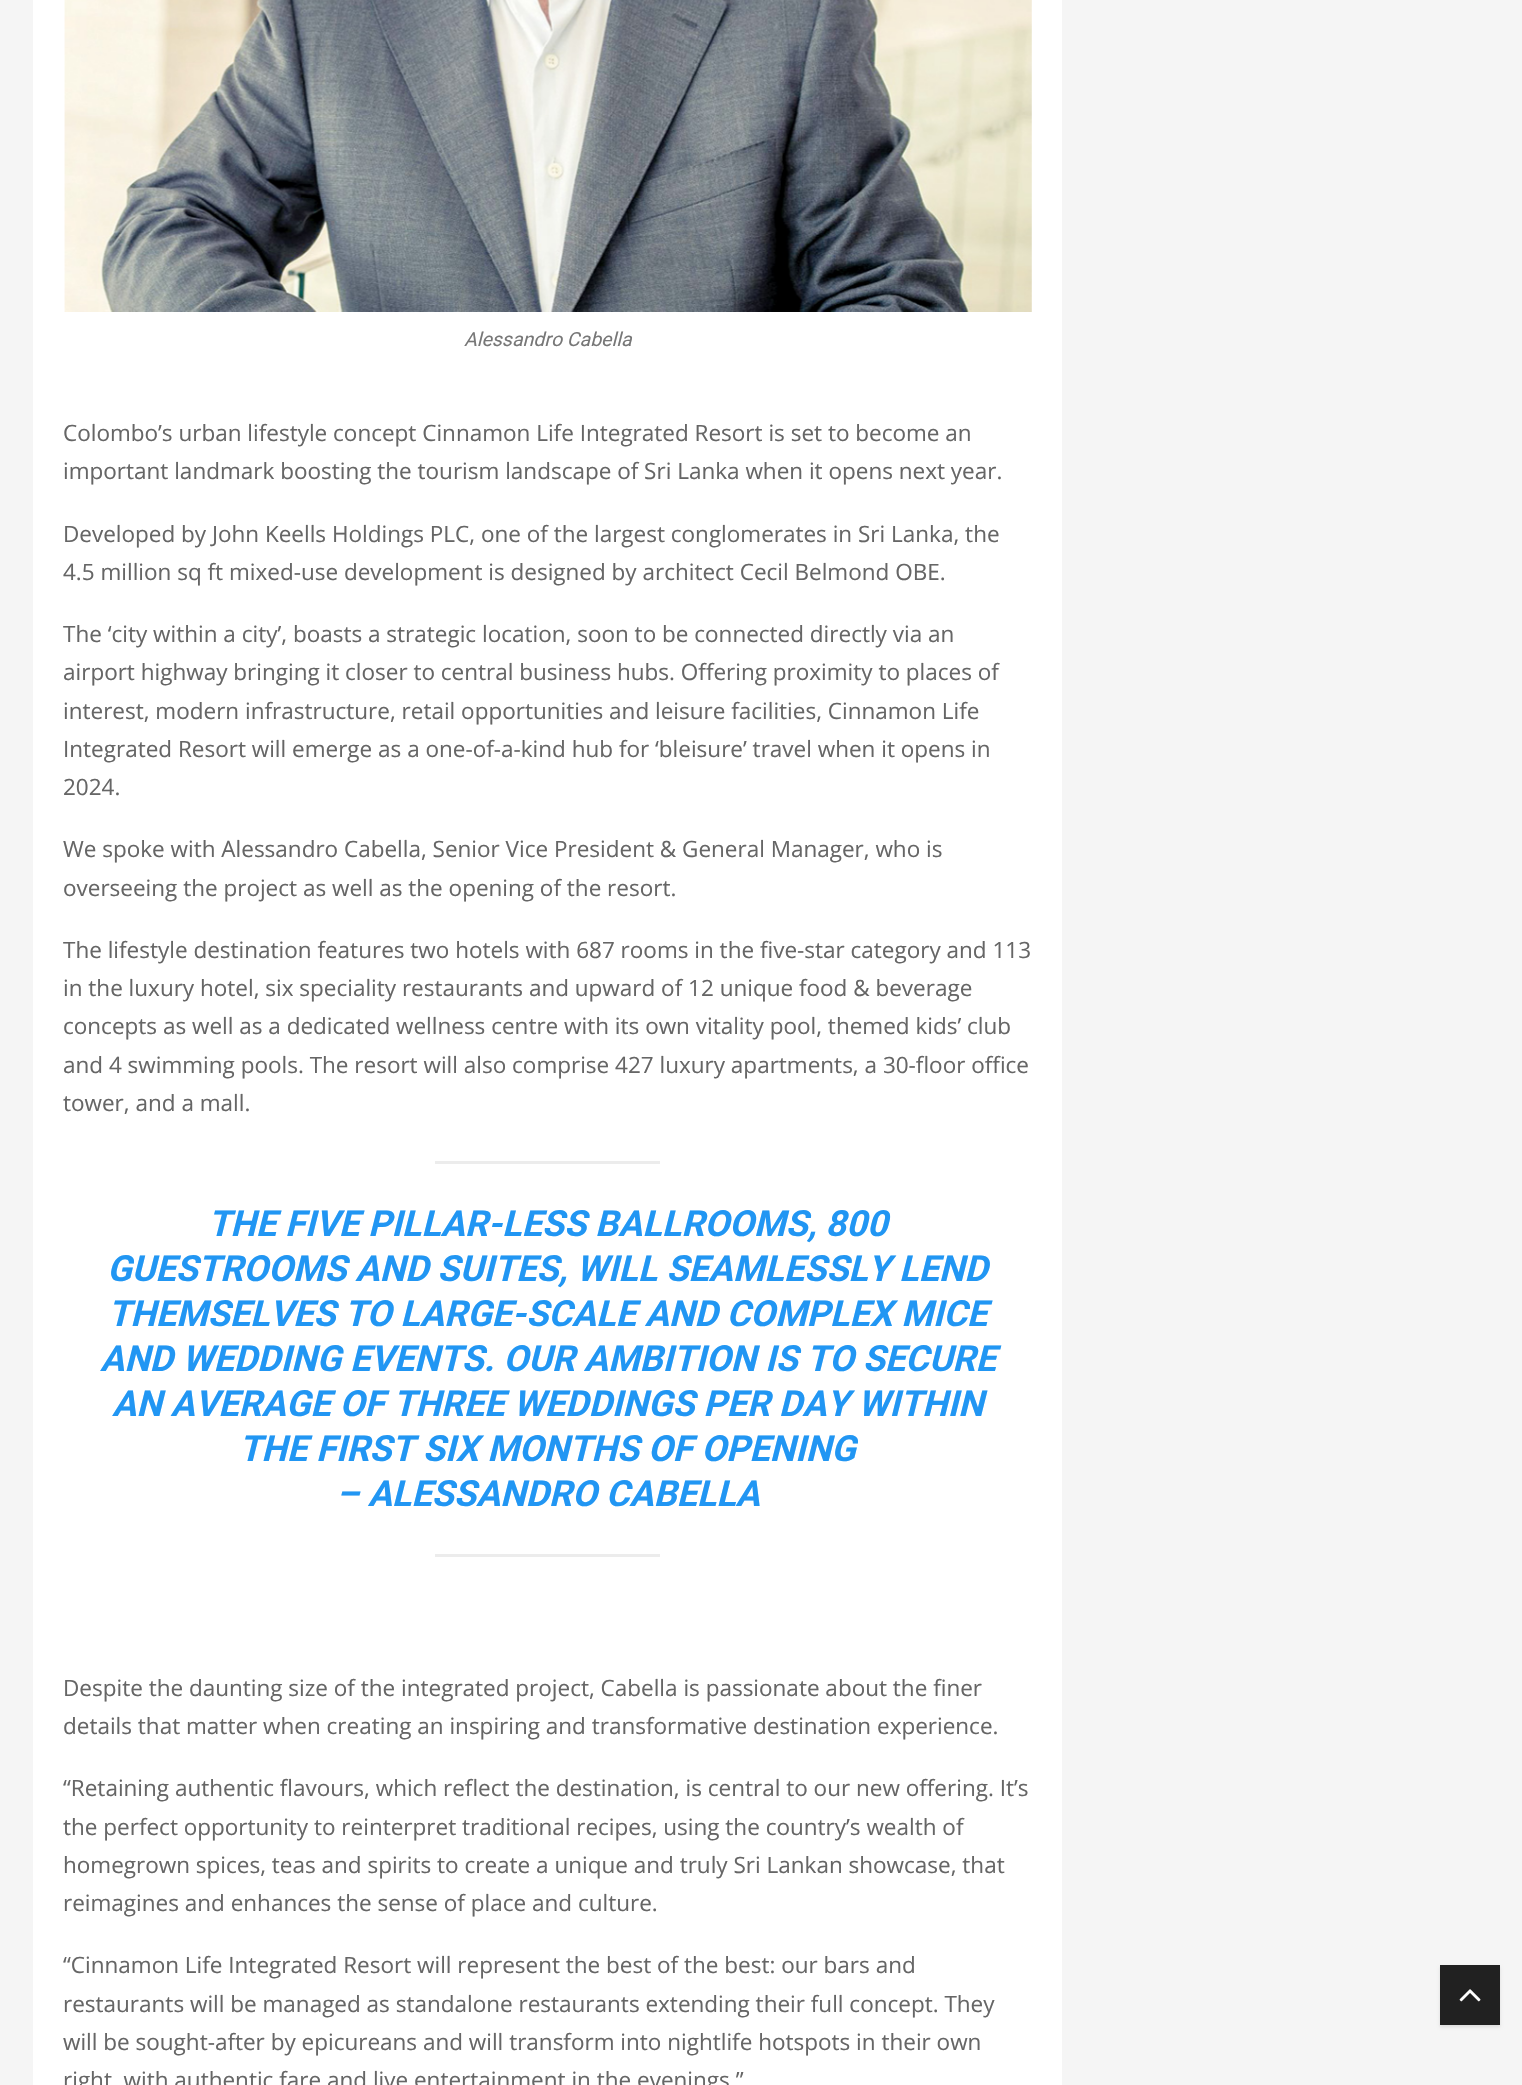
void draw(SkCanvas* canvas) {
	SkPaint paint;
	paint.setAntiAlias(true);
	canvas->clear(0xfff5f5f5);
	paint.setColor(0xffffffff);
	canvas->drawRect(SkRect::MakeXYWH(33, 0, 1029, 2085), paint);
	canvas->drawImageRect(SkImages::DeferredFromEncodedData(SkData::MakeFromFileName("img1.png")), SkRect::MakeXYWH(64, 0, 968, 312), SkSamplingOptions());
	SkFont f1(fontMgr->matchFamilyStyle("Roboto", SkFontStyle::Italic()), 19.5);
	f1.setSubpixel(true);
	paint.setColor(0xff777777);
	canvas->drawString("Alessandro Cabella", 464, 346, f1, paint);
	SkFont f2(fontMgr->matchFamilyStyle("Open Sans", SkFontStyle::Normal()), 22.5);
	f2.setSubpixel(true);
	paint.setColor(0xff666666);
	canvas->drawString("Colombo’s urban lifestyle concept Cinnamon Life Integrated Resort is set to become an", 63, 441, f2, paint);
	canvas->drawString("important landmark boosting the tourism landscape of Sri Lanka when it opens next year.", 63, 479, f2, paint);
	canvas->drawString("Developed by John Keells Holdings PLC, one of the largest conglomerates in Sri Lanka, the", 63, 542, f2, paint);
	canvas->drawString("4.5 million sq ft mixed-use development is designed by architect Cecil Belmond OBE.", 63, 580, f2, paint);
	canvas->drawString("The ‘city within a city’, boasts a strategic location, soon to be connected directly via an", 63, 642, f2, paint);
	canvas->drawString("airport highway bringing it closer to central business hubs. Offering proximity to places of", 63, 680, f2, paint);
	canvas->drawString("interest, modern infrastructure, retail opportunities and leisure facilities, Cinnamon Life", 63, 719, f2, paint);
	canvas->drawString("Integrated Resort will emerge as a one-of-a-kind hub for ‘bleisure’ travel when it opens in", 63, 757, f2, paint);
	canvas->drawString("2024.", 63, 795, f2, paint);
	canvas->drawString("We spoke with Alessandro Cabella, Senior Vice President & General Manager, who is", 63, 857, f2, paint);
	canvas->drawString("overseeing the project as well as the opening of the resort.", 63, 896, f2, paint);
	canvas->drawString("The lifestyle destination features two hotels with 687 rooms in the five-star category and 113", 63, 958, f2, paint);
	canvas->drawString("in the luxury hotel, six speciality restaurants and upward of 12 unique food & beverage", 63, 996, f2, paint);
	canvas->drawString("concepts as well as a dedicated wellness centre with its own vitality pool, themed kids’ club", 63, 1034, f2, paint);
	canvas->drawString("and 4 swimming pools. The resort will also comprise 427 luxury apartments, a 30-floor office", 63, 1073, f2, paint);
	canvas->drawString("tower, and a mall.", 63, 1111, f2, paint);
	paint.setColor(0xffececec);
	canvas->drawRect(SkRect::MakeXYWH(435, 1161, 225, 3), paint);
	SkFont f3(fontMgr->matchFamilyStyle("Roboto", SkFontStyle::BoldItalic()), 36);
	f3.setSubpixel(true);
	paint.setColor(0xff2196f3);
	canvas->drawString("THE FIVE PILLAR-LESS BALLROOMS, 800", 208, 1236, f3, paint);
	canvas->drawString("GUESTROOMS AND SUITES, WILL SEAMLESSLY LEND", 107, 1281, f3, paint);
	canvas->drawString("THEMSELVES TO LARGE-SCALE AND COMPLEX MICE", 108, 1326, f3, paint);
	canvas->drawString("AND WEDDING EVENTS. OUR AMBITION IS TO SECURE", 100, 1371, f3, paint);
	canvas->drawString("AN AVERAGE OF THREE WEDDINGS PER DAY WITHIN", 112, 1416, f3, paint);
	canvas->drawString("THE FIRST SIX MONTHS OF OPENING", 239, 1461, f3, paint);
	canvas->drawString("– ALESSANDRO CABELLA", 336, 1506, f3, paint);
	paint.setColor(0xffececec);
	canvas->drawRect(SkRect::MakeXYWH(435, 1554, 225, 3), paint);
	paint.setColor(0xff666666);
	canvas->drawString("Despite the daunting size of the integrated project, Cabella is passionate about the finer", 63, 1696, f2, paint);
	canvas->drawString("details that matter when creating an inspiring and transformative destination experience.", 63, 1734, f2, paint);
	canvas->drawString("“Retaining authentic flavours, which reflect the destination, is central to our new offering. It’s", 63, 1796, f2, paint);
	canvas->drawString("the perfect opportunity to reinterpret traditional recipes, using the country’s wealth of", 63, 1835, f2, paint);
	canvas->drawString("homegrown spices, teas and spirits to create a unique and truly Sri Lankan showcase, that", 63, 1873, f2, paint);
	canvas->drawString("reimagines and enhances the sense of place and culture.", 63, 1911, f2, paint);
	canvas->drawString("“Cinnamon Life Integrated Resort will represent the best of the best: our bars and", 63, 1973, f2, paint);
	canvas->drawString("restaurants will be managed as standalone restaurants extending their full concept. They", 63, 2012, f2, paint);
	canvas->drawString("will be sought-after by epicureans and will transform into nightlife hotspots in their own", 63, 2050, f2, paint);
	canvas->drawString("right, with authentic fare and live entertainment in the evenings.”", 63, 2088, f2, paint);
	paint.setColor(0x1a000000);
	paint.setMaskFilter(SkMaskFilter::MakeBlur(kNormal_SkBlurStyle, 1.5));
	canvas->drawRect(SkRect::MakeXYWH(1440, 1967, 60, 60), paint);
	paint.setMaskFilter(nullptr);
	paint.setColor(0xff212121);
	canvas->drawRect(SkRect::MakeXYWH(1440, 1965, 60, 60), paint);
	canvas->drawImageRect(SkImages::DeferredFromEncodedData(SkData::MakeFromFileName("img2.png")), SkRect::MakeXYWH(1459, 1989, 22, 13), SkSamplingOptions());
}
